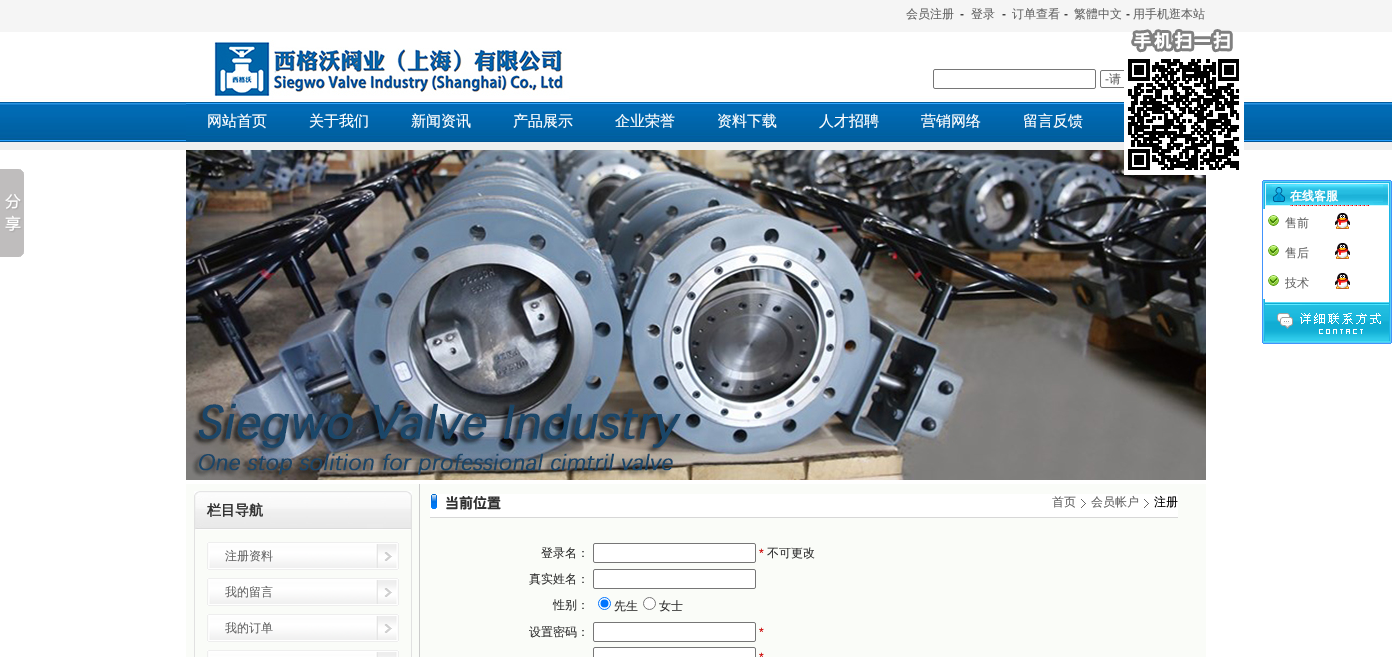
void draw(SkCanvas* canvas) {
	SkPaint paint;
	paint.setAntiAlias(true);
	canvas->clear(0xffffffff);
	canvas->drawImageRect(SkImages::DeferredFromEncodedData(SkData::MakeFromFileName("img1.png")), SkRect::MakeXYWH(0, 0, 1392, 150), SkSamplingOptions());
	SkFont f1(fontMgr->matchFamilyStyle("WenQuanYi Zen Hei", SkFontStyle(500, SkFontStyle::kNormal_Width, SkFontStyle::kUpright_Slant)), 12);
	f1.setSubpixel(true);
	paint.setColor(0xff666666);
	canvas->drawString("会员注册", 906, 18, f1, paint);
	SkFont f2(fontMgr->matchFamilyStyle("Liberation Sans", SkFontStyle::Normal()), 12);
	f2.setSubpixel(true);
	paint.setColor(0xff000000);
	canvas->drawString("-", 960, 18, f2, paint);
	paint.setColor(0xff666666);
	canvas->drawString("登录", 971, 18, f1, paint);
	paint.setColor(0xff000000);
	canvas->drawString("-", 1002, 18, f2, paint);
	paint.setColor(0xff666666);
	canvas->drawString("订单查看", 1012, 18, f1, paint);
	paint.setColor(0xff000000);
	canvas->drawString("-", 1064, 18, f2, paint);
	paint.setColor(0xff666666);
	canvas->drawString("繁體中文", 1074, 18, f1, paint);
	paint.setColor(0xff000000);
	canvas->drawString("-", 1126, 18, f2, paint);
	paint.setColor(0xff666666);
	canvas->drawString("用手机逛本站", 1133, 18, f1, paint);
	paint.setStroke(true);
	paint.setStrokeWidth(1);
	paint.setColor(0xff767676);
	canvas->drawRoundRect(SkRect::MakeXYWH(1100.5, 70.5, 65, 17), 1.5, 1.5, paint);
	canvas->drawImageRect(SkImages::DeferredFromEncodedData(SkData::MakeFromFileName("img7.png")), SkRect::MakeXYWH(186, 150, 1020, 330), SkSamplingOptions());
	canvas->drawImageRect(SkImages::DeferredFromEncodedData(SkData::MakeFromFileName("img2.png")), SkRect::MakeXYWH(1124, 29, 120, 146), SkSamplingOptions());
	canvas->drawImageRect(SkImages::DeferredFromEncodedData(SkData::MakeFromFileName("img3.png")), SkRect::MakeXYWH(212, 40, 357, 59), SkSamplingOptions());
	canvas->drawRoundRect(SkRect::MakeXYWH(933.5, 69.5, 162, 19), 1.5, 1.5, paint);
	paint.setStroke(false);
	paint.setColor(0xff666666);
	canvas->drawString("-", 1105, 83, f2, paint);
	canvas->drawString("请", 1109, 83, f1, paint);
	canvas->drawImageRect(SkImages::DeferredFromEncodedData(SkData::MakeFromFileName("img4.png")), SkRect::MakeXYWH(186, 102, 102, 39), SkSamplingOptions());
	SkFont f3(fontMgr->matchFamilyStyle("WenQuanYi Zen Hei", SkFontStyle(500, SkFontStyle::kNormal_Width, SkFontStyle::kUpright_Slant)), 15);
	f3.setSubpixel(true);
	paint.setColor(0xffffffff);
	canvas->drawString("网站首页", 207, 126, f3, paint);
	canvas->drawImageRect(SkImages::DeferredFromEncodedData(SkData::MakeFromFileName("img4.png")), SkRect::MakeXYWH(288, 102, 102, 39), SkSamplingOptions());
	canvas->drawString("关于我们", 309, 126, f3, paint);
	canvas->drawImageRect(SkImages::DeferredFromEncodedData(SkData::MakeFromFileName("img4.png")), SkRect::MakeXYWH(390, 102, 102, 39), SkSamplingOptions());
	canvas->drawString("新闻资讯", 411, 126, f3, paint);
	canvas->drawImageRect(SkImages::DeferredFromEncodedData(SkData::MakeFromFileName("img4.png")), SkRect::MakeXYWH(492, 102, 102, 39), SkSamplingOptions());
	canvas->drawString("产品展示", 513, 126, f3, paint);
	canvas->drawImageRect(SkImages::DeferredFromEncodedData(SkData::MakeFromFileName("img4.png")), SkRect::MakeXYWH(594, 102, 102, 39), SkSamplingOptions());
	canvas->drawString("企业荣誉", 615, 126, f3, paint);
	canvas->drawImageRect(SkImages::DeferredFromEncodedData(SkData::MakeFromFileName("img4.png")), SkRect::MakeXYWH(696, 102, 102, 39), SkSamplingOptions());
	canvas->drawString("资料下载", 717, 126, f3, paint);
	canvas->drawImageRect(SkImages::DeferredFromEncodedData(SkData::MakeFromFileName("img4.png")), SkRect::MakeXYWH(798, 102, 102, 39), SkSamplingOptions());
	canvas->drawString("人才招聘", 819, 126, f3, paint);
	canvas->drawImageRect(SkImages::DeferredFromEncodedData(SkData::MakeFromFileName("img4.png")), SkRect::MakeXYWH(900, 102, 102, 39), SkSamplingOptions());
	canvas->drawString("营销网络", 921, 126, f3, paint);
	canvas->drawImageRect(SkImages::DeferredFromEncodedData(SkData::MakeFromFileName("img4.png")), SkRect::MakeXYWH(1002, 102, 102, 39), SkSamplingOptions());
	canvas->drawString("留言反馈", 1023, 126, f3, paint);
	canvas->drawImageRect(SkImages::DeferredFromEncodedData(SkData::MakeFromFileName("img5.png")), SkRect::MakeXYWH(1104, 102, 20, 39), SkSamplingOptions());
	canvas->drawImageRect(SkImages::DeferredFromEncodedData(SkData::MakeFromFileName("img6.png")), SkRect::MakeXYWH(0, 169, 24, 88), SkSamplingOptions());
	canvas->drawImageRect(SkImages::DeferredFromEncodedData(SkData::MakeFromFileName("img8.png")), SkRect::MakeXYWH(1262, 180, 130, 26), SkSamplingOptions());
	canvas->drawImageRect(SkImages::DeferredFromEncodedData(SkData::MakeFromFileName("img9.png")), SkRect::MakeXYWH(1290, 205, 79, 1), SkSamplingOptions());
	SkFont f4(fontMgr->matchFamilyStyle("WenQuanYi Zen Hei", SkFontStyle::Bold()), 12);
	f4.setSubpixel(true);
	canvas->drawString("在线客服", 1290, 200, f4, paint);
	canvas->drawImageRect(SkImages::DeferredFromEncodedData(SkData::MakeFromFileName("img10.png")), SkRect::MakeXYWH(1262, 206, 130, 3), SkSamplingOptions());
	canvas->drawImageRect(SkImages::DeferredFromEncodedData(SkData::MakeFromFileName("img11.png")), SkRect::MakeXYWH(1262, 209, 130, 90), SkSamplingOptions());
	canvas->drawRect(SkRect::MakeXYWH(1263, 209, 2, 90), paint);
	canvas->drawImageRect(SkImages::DeferredFromEncodedData(SkData::MakeFromFileName("img12.png")), SkRect::MakeXYWH(1268, 215, 11, 11), SkSamplingOptions());
	paint.setColor(0xff666666);
	canvas->drawString("售前", 1285, 227, f1, paint);
	canvas->drawImageRect(SkImages::DeferredFromEncodedData(SkData::MakeFromFileName("img13.png")), SkRect::MakeXYWH(1335, 213, 15, 16), SkSamplingOptions());
	canvas->drawImageRect(SkImages::DeferredFromEncodedData(SkData::MakeFromFileName("img12.png")), SkRect::MakeXYWH(1268, 245, 11, 11), SkSamplingOptions());
	canvas->drawString("售后", 1285, 257, f1, paint);
	canvas->drawImageRect(SkImages::DeferredFromEncodedData(SkData::MakeFromFileName("img13.png")), SkRect::MakeXYWH(1335, 243, 15, 16), SkSamplingOptions());
	canvas->drawImageRect(SkImages::DeferredFromEncodedData(SkData::MakeFromFileName("img12.png")), SkRect::MakeXYWH(1268, 275, 11, 11), SkSamplingOptions());
	canvas->drawString("技术", 1285, 287, f1, paint);
	canvas->drawImageRect(SkImages::DeferredFromEncodedData(SkData::MakeFromFileName("img13.png")), SkRect::MakeXYWH(1335, 273, 15, 16), SkSamplingOptions());
	canvas->drawImageRect(SkImages::DeferredFromEncodedData(SkData::MakeFromFileName("img10.png")), SkRect::MakeXYWH(1262, 299, 130, 3), SkSamplingOptions());
	canvas->drawImageRect(SkImages::DeferredFromEncodedData(SkData::MakeFromFileName("img14.png")), SkRect::MakeXYWH(1262, 302, 130, 42), SkSamplingOptions());
	paint.setColor(0xfffafcf8);
	canvas->drawRect(SkRect::MakeXYWH(186, 484, 1020, 173), paint);
	paint.setColor(0xffcccccc);
	canvas->drawRect(SkRect::MakeXYWH(419, 484, 1, 173), paint);
	canvas->drawImageRect(SkImages::DeferredFromEncodedData(SkData::MakeFromFileName("img15.png")), SkRect::MakeXYWH(194, 491, 218, 39), SkSamplingOptions());
	SkFont f5(fontMgr->matchFamilyStyle("WenQuanYi Zen Hei", SkFontStyle::Bold()), 14);
	f5.setSubpixel(true);
	paint.setColor(0xff333333);
	canvas->drawString("栏目导航", 207, 515, f5, paint);
	paint.setColor(0xffe1e1e1);
	canvas->drawRect(SkRect::MakeXYWH(411, 530, 1, 127), paint);
	canvas->drawRect(SkRect::MakeXYWH(194, 530, 1, 127), paint);
	canvas->drawImageRect(SkImages::DeferredFromEncodedData(SkData::MakeFromFileName("img16.png")), SkRect::MakeXYWH(207, 542, 192, 28), SkSamplingOptions());
	paint.setColor(0xff666666);
	canvas->drawString("注册资料", 225, 560, f1, paint);
	canvas->drawImageRect(SkImages::DeferredFromEncodedData(SkData::MakeFromFileName("img16.png")), SkRect::MakeXYWH(207, 578, 192, 28), SkSamplingOptions());
	canvas->drawString("我的留言", 225, 596, f1, paint);
	canvas->drawImageRect(SkImages::DeferredFromEncodedData(SkData::MakeFromFileName("img16.png")), SkRect::MakeXYWH(207, 614, 192, 28), SkSamplingOptions());
	canvas->drawString("我的订单", 225, 632, f1, paint);
	canvas->drawImageRect(SkImages::DeferredFromEncodedData(SkData::MakeFromFileName("img17.png")), SkRect::MakeXYWH(207, 650, 192, 7), SkSamplingOptions());
	canvas->drawImageRect(SkImages::DeferredFromEncodedData(SkData::MakeFromFileName("img18.png")), SkRect::MakeXYWH(430, 494, 748, 24), SkSamplingOptions());
	canvas->drawString("首页", 1052, 506, f1, paint);
	canvas->drawImageRect(SkImages::DeferredFromEncodedData(SkData::MakeFromFileName("img19.png")), SkRect::MakeXYWH(1081, 499, 5, 9), SkSamplingOptions());
	canvas->drawString("会员帐户", 1091, 506, f1, paint);
	canvas->drawImageRect(SkImages::DeferredFromEncodedData(SkData::MakeFromFileName("img19.png")), SkRect::MakeXYWH(1144, 499, 5, 9), SkSamplingOptions());
	paint.setColor(0xff000000);
	canvas->drawString("注册", 1154, 506, f1, paint);
	paint.setColor(0xff333333);
	canvas->drawString("登录名：", 541, 557, f1, paint);
	paint.setColor(0xffffffff);
	canvas->drawRoundRect(SkRect::MakeXYWH(593.5, 543.5, 162, 19), 1.5, 1.5, paint);
	paint.setStroke(true);
	paint.setColor(0xff767676);
	canvas->drawRoundRect(SkRect::MakeXYWH(593.5, 543.5, 162, 19), 1.5, 1.5, paint);
	paint.setStroke(false);
	paint.setColor(0xffcc0000);
	canvas->drawString("*", 759, 557, f2, paint);
	paint.setColor(0xff333333);
	canvas->drawString("不可更改", 767, 557, f1, paint);
	canvas->drawString("真实姓名：", 529, 583, f1, paint);
	paint.setColor(0xffffffff);
	canvas->drawRoundRect(SkRect::MakeXYWH(593.5, 569.5, 162, 19), 1.5, 1.5, paint);
	paint.setStroke(true);
	paint.setColor(0xff767676);
	canvas->drawRoundRect(SkRect::MakeXYWH(593.5, 569.5, 162, 19), 1.5, 1.5, paint);
	paint.setStroke(false);
	paint.setColor(0xff333333);
	canvas->drawString("性别：", 553, 609, f1, paint);
	paint.setColor(0xffffffff);
	canvas->drawCircle(604.5, 603.5, 6, paint);
	paint.setStroke(true);
	paint.setColor(0xff0075ff);
	canvas->drawCircle(604.5, 603.5, 6, paint);
	paint.setStroke(false);
	canvas->drawCircle(604.5, 603.5, 4, paint);
	paint.setColor(0xff333333);
	canvas->drawString("先生", 614, 610, f1, paint);
	paint.setColor(0xffffffff);
	canvas->drawCircle(649.5, 603.5, 6, paint);
	paint.setStroke(true);
	paint.setColor(0xff767676);
	canvas->drawCircle(649.5, 603.5, 6, paint);
	paint.setStroke(false);
	paint.setColor(0xff333333);
	canvas->drawString("女士", 659, 610, f1, paint);
	canvas->drawString("设置密码：", 529, 636, f1, paint);
	paint.setColor(0xffffffff);
	canvas->drawRoundRect(SkRect::MakeXYWH(593.5, 622.5, 162, 19), 1.5, 1.5, paint);
	paint.setStroke(true);
	paint.setColor(0xff767676);
	canvas->drawRoundRect(SkRect::MakeXYWH(593.5, 622.5, 162, 19), 1.5, 1.5, paint);
	paint.setStroke(false);
	paint.setColor(0xffcc0000);
	canvas->drawString("*", 759, 636, f2, paint);
	paint.setColor(0xffffffff);
	canvas->drawRoundRect(SkRect::MakeXYWH(593.5, 647.5, 162, 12), 1.5, 1.5, paint);
	paint.setStroke(true);
	paint.setColor(0xff767676);
	canvas->drawRoundRect(SkRect::MakeXYWH(593.5, 647.5, 162, 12), 1.5, 1.5, paint);
	paint.setStroke(false);
	paint.setColor(0xffcc0000);
	canvas->drawString("*", 759, 661, f2, paint);
}
